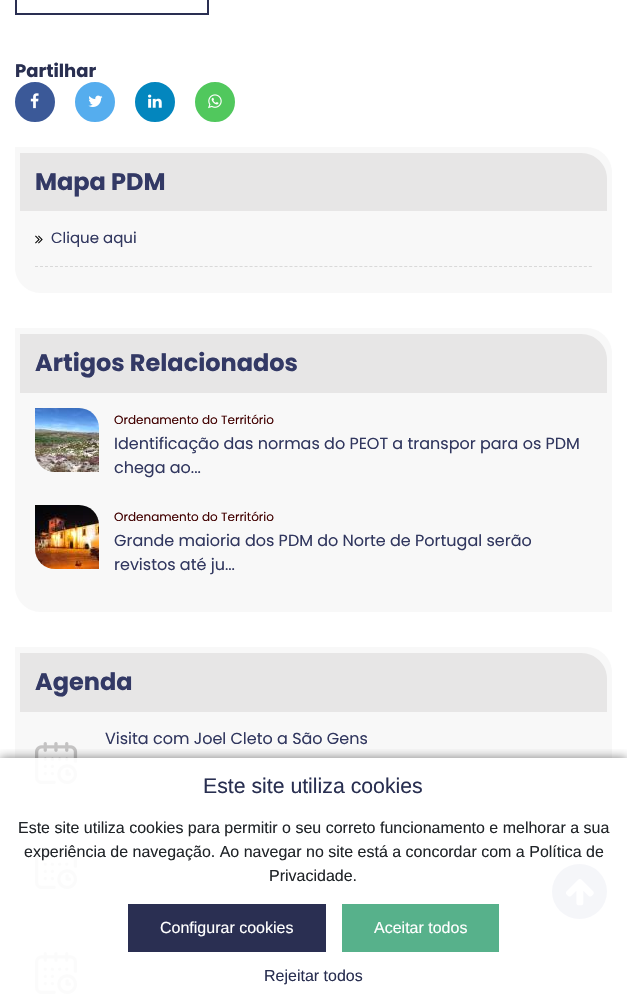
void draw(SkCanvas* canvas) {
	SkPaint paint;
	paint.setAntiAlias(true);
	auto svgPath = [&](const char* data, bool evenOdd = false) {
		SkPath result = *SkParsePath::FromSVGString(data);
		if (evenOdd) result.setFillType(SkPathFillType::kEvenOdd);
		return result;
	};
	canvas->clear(0xffffffff);
	paint.setStroke(true);
	paint.setStrokeWidth(2);
	paint.setColor(0xff2a2f52);
	canvas->drawRect(SkRect::MakeXYWH(16, -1, 192, 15), paint);
	SkFont f1(fontMgr->matchFamilyStyle("Poppins", SkFontStyle::Bold()), 18);
	f1.setSubpixel(true);
	paint.setStroke(false);
	paint.setColor(0xff292f51);
	canvas->drawString("Partilhar", 15, 77, f1, paint);
	paint.setColor(0xff3b5998);
	canvas->drawCircle(35, 102, 19, paint);
	paint.setStroke(true);
	canvas->drawCircle(35, 102, 19, paint);
	canvas->drawImageRect(SkImages::DeferredFromEncodedData(SkData::MakeFromFileName("img1.png")), SkRect::MakeXYWH(30, 93, 9, 16), SkSamplingOptions());
	paint.setStroke(false);
	paint.setColor(0xff55adee);
	canvas->drawCircle(95, 102, 19, paint);
	paint.setStroke(true);
	canvas->drawCircle(95, 102, 19, paint);
	canvas->drawImageRect(SkImages::DeferredFromEncodedData(SkData::MakeFromFileName("img2.png")), SkRect::MakeXYWH(88, 95, 15, 12), SkSamplingOptions());
	paint.setStroke(false);
	paint.setColor(0xff0386be);
	canvas->drawCircle(155, 102, 19, paint);
	paint.setStroke(true);
	canvas->drawCircle(155, 102, 19, paint);
	canvas->drawImageRect(SkImages::DeferredFromEncodedData(SkData::MakeFromFileName("img3.png")), SkRect::MakeXYWH(148, 94, 14, 14), SkSamplingOptions());
	paint.setStroke(false);
	paint.setColor(0xff51c85d);
	canvas->drawCircle(215, 102, 19, paint);
	paint.setStroke(true);
	canvas->drawCircle(215, 102, 19, paint);
	canvas->drawImageRect(SkImages::DeferredFromEncodedData(SkData::MakeFromFileName("img4.png")), SkRect::MakeXYWH(208, 94, 14, 15), SkSamplingOptions());
	paint.setStroke(false);
	paint.setColor(0xfff8f8f8);
	canvas->drawPath(svgPath("M15 147H586C600.5 147 612 158.5 612 173V293H41C26.5 293 15 281.5 15 267Z"), paint);
	paint.setColor(0xffe7e6e6);
	canvas->drawPath(svgPath("M20 153H581C595.5 153 607 164.5 607 179V211H20Z"), paint);
	SkFont f2(fontMgr->matchFamilyStyle("Poppins", SkFontStyle::Bold()), 24);
	f2.setSubpixel(true);
	paint.setColor(0xff333965);
	canvas->drawString("Mapa PDM", 35, 190, f2, paint);
	paint.setStroke(true);
	paint.setStrokeWidth(1);
	paint.setColor(0xffd9d9d9);
	paint.setPathEffect(SkDashPathEffect::Make({{3, 1.99f}}, 0));
	canvas->drawPath(svgPath("M35 266.5H592"), paint);
	paint.setPathEffect(nullptr);
	canvas->drawImageRect(SkImages::DeferredFromEncodedData(SkData::MakeFromFileName("img5.png")), SkRect::MakeXYWH(35, 235, 8, 9), SkSamplingOptions());
	SkFont f3(fontMgr->matchFamilyStyle("Poppins", SkFontStyle::Normal()), 15);
	f3.setSubpixel(true);
	paint.setStroke(false);
	paint.setColor(0xff31375f);
	canvas->drawString("Clique aqui", 51, 243, f3, paint);
	paint.setColor(0xfff8f8f8);
	canvas->drawPath(svgPath("M15 328H586C600.5 328 612 339.5 612 354V612H41C26.5 612 15 600.5 15 586Z"), paint);
	paint.setColor(0xffe7e6e6);
	canvas->drawPath(svgPath("M20 334H581C595.5 334 607 345.5 607 360V393H20Z"), paint);
	paint.setColor(0xff333965);
	canvas->drawString("Artigos Relacionados", 35, 371, f2, paint);
	canvas->drawImageRect(SkImages::DeferredFromEncodedData(SkData::MakeFromFileName("img6.png")), SkRect::MakeXYWH(35, 408, 64, 64), SkSamplingOptions());
	SkFont f4(fontMgr->matchFamilyStyle("Poppins", SkFontStyle::Normal()), 12);
	f4.setSubpixel(true);
	paint.setColor(0xff410000);
	canvas->drawString("Ordenamento do Território", 114, 424, f4, paint);
	SkFont f5(fontMgr->matchFamilyStyle("Poppins", SkFontStyle::Normal()), 16);
	f5.setSubpixel(true);
	paint.setColor(0xff31375f);
	canvas->drawString("Identificação das normas do PEOT a transpor para os PDM", 114, 449, f5, paint);
	canvas->drawString("chega ao...", 114, 473, f5, paint);
	canvas->drawImageRect(SkImages::DeferredFromEncodedData(SkData::MakeFromFileName("img7.png")), SkRect::MakeXYWH(35, 505, 64, 64), SkSamplingOptions());
	paint.setColor(0xff410000);
	canvas->drawString("Ordenamento do Território", 114, 521, f4, paint);
	paint.setColor(0xff31375f);
	canvas->drawString("Grande maioria dos PDM do Norte de Portugal serão", 114, 546, f5, paint);
	canvas->drawString("revistos até ju...", 114, 570, f5, paint);
	paint.setColor(0xfff8f8f8);
	canvas->drawPath(svgPath("M15 647H586C600.5 647 612 658.5 612 673V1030H41C26.5 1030 15 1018.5 15 1004Z"), paint);
	paint.setColor(0xffe7e6e6);
	canvas->drawPath(svgPath("M20 653H581C595.5 653 607 664.5 607 679V712H20Z"), paint);
	paint.setColor(0xff333965);
	canvas->drawString("Agenda", 35, 690, f2, paint);
	paint.setColor(0xff31375f);
	canvas->drawString("Visita com Joel Cleto a São Gens", 105, 744, f5, paint);
	canvas->drawImageRect(SkImages::DeferredFromEncodedData(SkData::MakeFromFileName("img8.png")), SkRect::MakeXYWH(35, 742, 43, 42), SkSamplingOptions());
	canvas->drawImageRect(SkImages::DeferredFromEncodedData(SkData::MakeFromFileName("img8.png")), SkRect::MakeXYWH(35, 847, 43, 42), SkSamplingOptions());
	canvas->drawImageRect(SkImages::DeferredFromEncodedData(SkData::MakeFromFileName("img8.png")), SkRect::MakeXYWH(35, 952, 43, 42), SkSamplingOptions());
	paint.setColor(0xff6d77aa);
	canvas->drawCircle(579.5, 891.5, 27.5, paint);
	canvas->drawImageRect(SkImages::DeferredFromEncodedData(SkData::MakeFromFileName("img9.png")), SkRect::MakeXYWH(566, 879, 28, 27), SkSamplingOptions());
	canvas->save();
	canvas->clipRect(SkRect::MakeXYWH(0, 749, 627, 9));
	paint.setColor(0x80000000);
	paint.setMaskFilter(SkMaskFilter::MakeBlur(kNormal_SkBlurStyle, 5));
	canvas->drawRect(SkRect::MakeXYWH(0, 758, 627, 246), paint);
	paint.setMaskFilter(nullptr);
	canvas->restore();
	paint.setColor(0xedffffff);
	canvas->drawRect(SkRect::MakeXYWH(15, 758, 597, 246), paint);
	SkFont f6(fontMgr->matchFamilyStyle("Liberation Sans", SkFontStyle::Normal()), 21.25);
	f6.setSubpixel(true);
	paint.setColor(0xff292f51);
	canvas->drawString("Este site utiliza cookies", 203, 793, f6, paint);
	SkFont f7(fontMgr->matchFamilyStyle("Liberation Sans", SkFontStyle::Normal()), 16);
	f7.setSubpixel(true);
	paint.setColor(0xff212529);
	canvas->drawString("Este site utiliza cookies para permitir o seu correto funcionamento e melhorar a sua", 18, 833, f7, paint);
	canvas->drawString("experiência de navegação. Ao navegar no site está a concordar com a Política de", 24, 857, f7, paint);
	canvas->drawString("Privacidade.", 269, 881, f7, paint);
	paint.setColor(0xff2a2f52);
	canvas->drawRect(SkRect::MakeXYWH(128, 904, 198, 48), paint);
	paint.setColor(0xffffffff);
	canvas->drawString("Configurar cookies", 160, 933, f7, paint);
	paint.setColor(0xff57b18b);
	canvas->drawRect(SkRect::MakeXYWH(342, 904, 157, 48), paint);
	paint.setColor(0xffffffff);
	canvas->drawString("Aceitar todos", 374, 933, f7, paint);
	paint.setColor(0xff292f51);
	canvas->drawString("Rejeitar todos", 264, 981, f7, paint);
}
